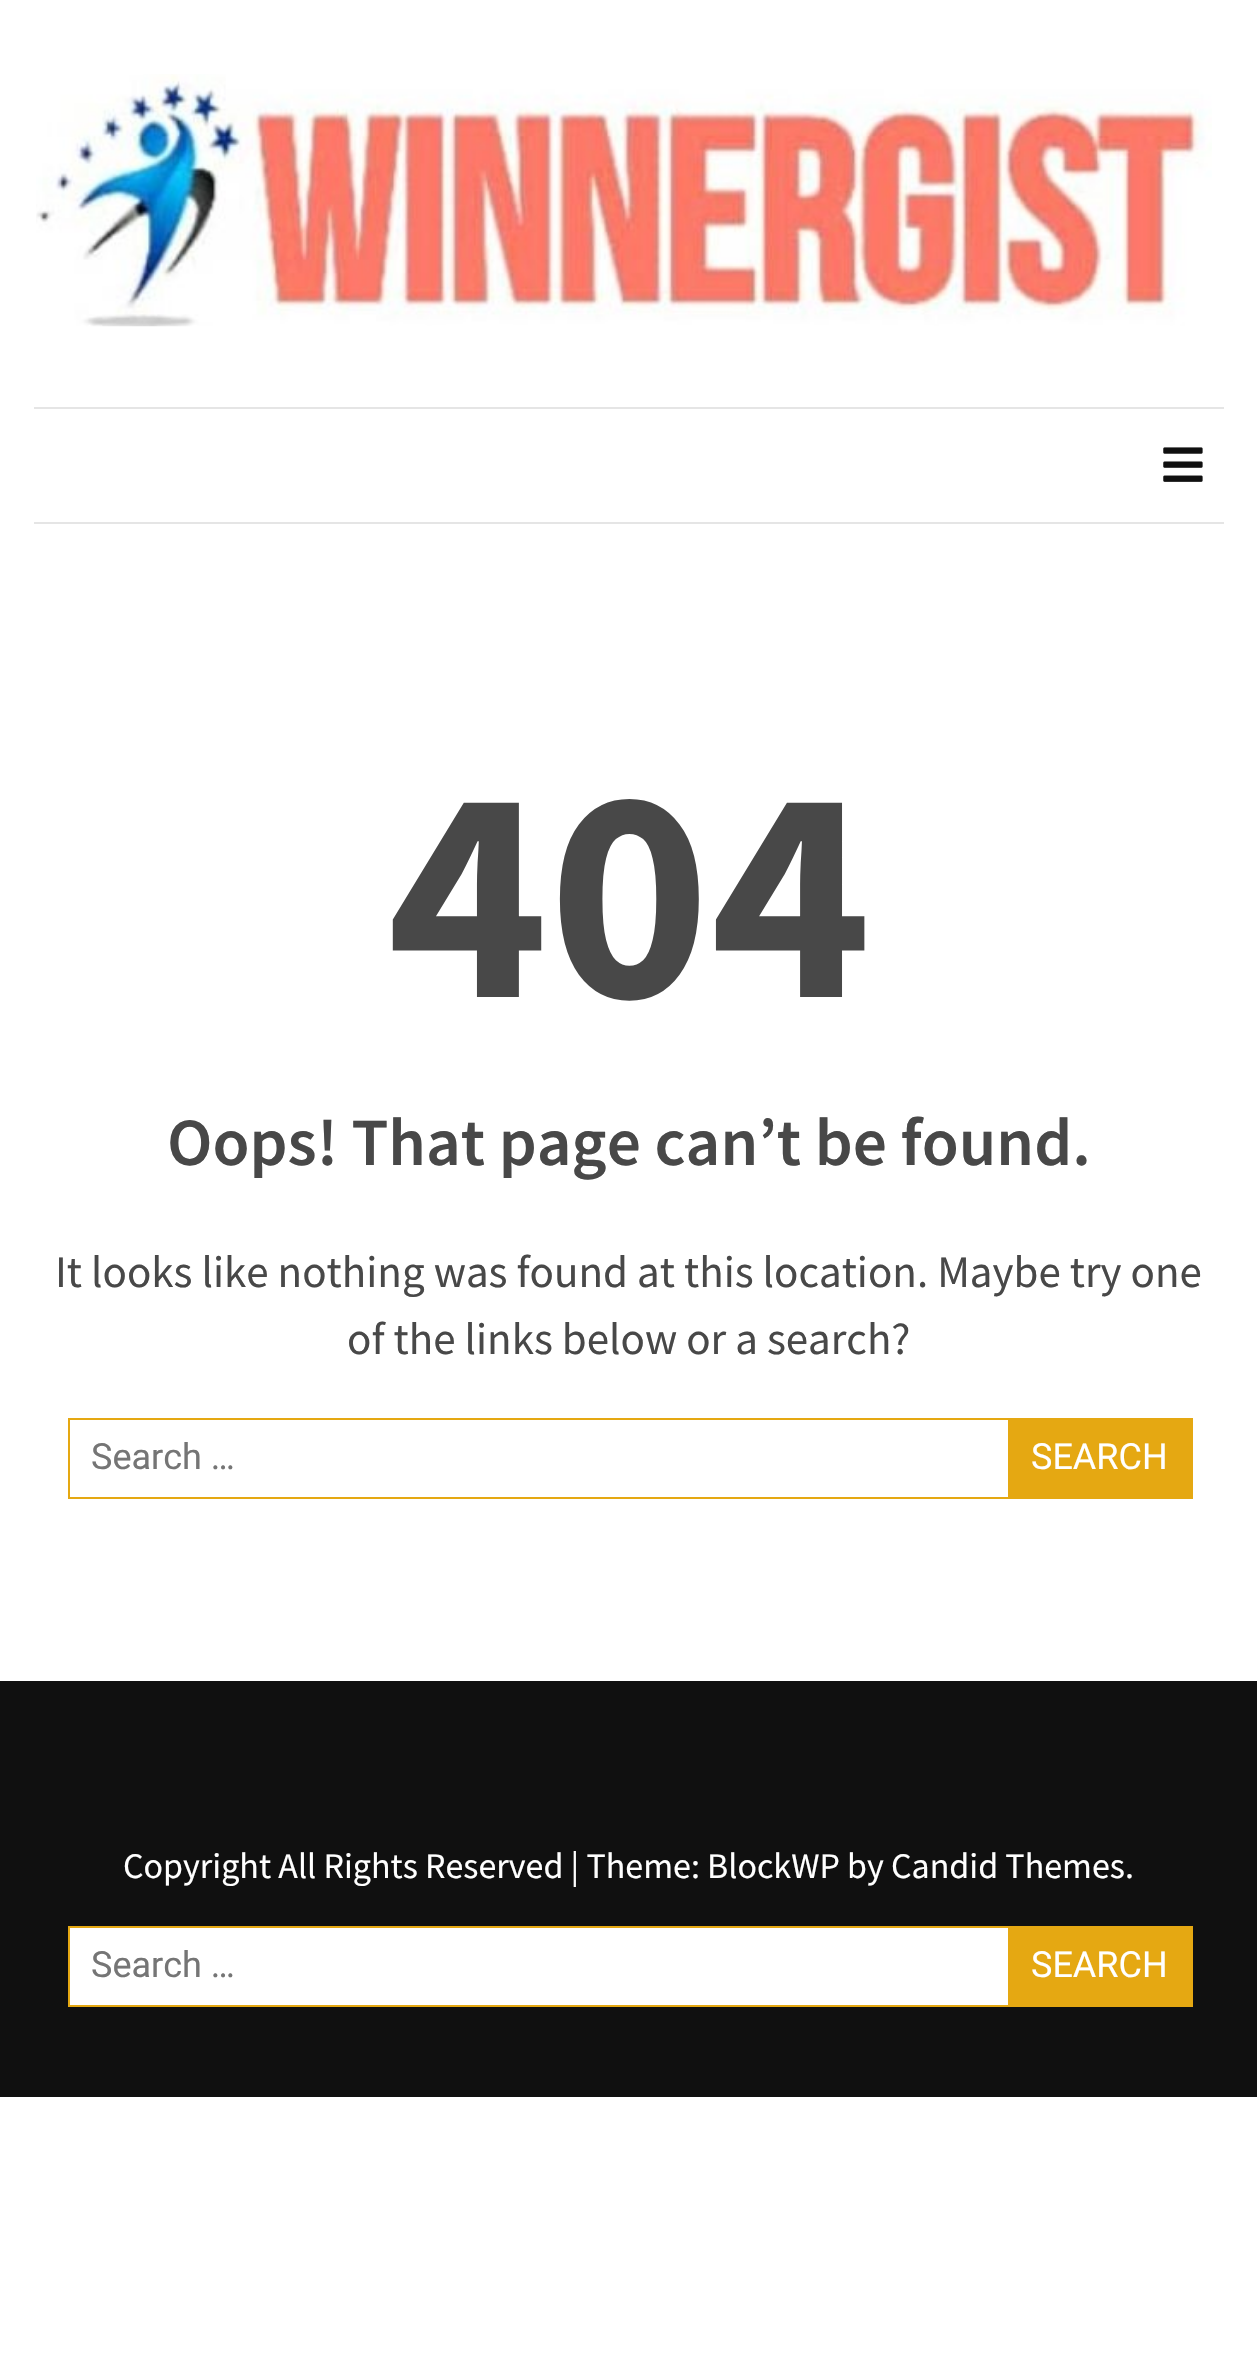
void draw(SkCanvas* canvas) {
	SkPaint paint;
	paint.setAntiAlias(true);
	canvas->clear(0xffffffff);
	canvas->drawImageRect(SkImages::DeferredFromEncodedData(SkData::MakeFromFileName("img1.png")), SkRect::MakeXYWH(36, 74, 1176, 253), SkSamplingOptions());
	paint.setColor(0xffe5e5e5);
	canvas->drawRect(SkRect::MakeXYWH(34, 407, 1190, 2), paint);
	canvas->drawRect(SkRect::MakeXYWH(34, 522, 1190, 2), paint);
	canvas->drawImageRect(SkImages::DeferredFromEncodedData(SkData::MakeFromFileName("img2.png")), SkRect::MakeXYWH(1163, 447, 40, 35), SkSamplingOptions());
	SkFont f1(fontMgr->matchFamilyStyle("Source Sans Pro", SkFontStyle::Bold()), 306);
	f1.setSubpixel(true);
	paint.setColor(0xff484848);
	canvas->drawString("404", 387, 997, f1, paint);
	SkFont f2(fontMgr->matchFamilyStyle("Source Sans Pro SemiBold", SkFontStyle(600, SkFontStyle::kNormal_Width, SkFontStyle::kUpright_Slant)), 67.5);
	f2.setSubpixel(true);
	canvas->drawString("Oops! That page can’t be found.", 167, 1165, f2, paint);
	SkFont f3(fontMgr->matchFamilyStyle("Source Sans Pro", SkFontStyle::Normal()), 45);
	f3.setSubpixel(true);
	canvas->drawString("It looks like nothing was found at this location. Maybe try one", 55, 1287, f3, paint);
	canvas->drawString("of the links below or a search?", 347, 1354, f3, paint);
	paint.setStroke(true);
	paint.setStrokeWidth(2);
	paint.setColor(0xffe5a812);
	canvas->drawRect(SkRect::MakeXYWH(69, 1419, 1123, 79), paint);
	SkFont f4(fontMgr->matchFamilyStyle("Roboto", SkFontStyle::Normal()), 36);
	f4.setSubpixel(true);
	paint.setStroke(false);
	paint.setColor(0xff757575);
	canvas->drawString("Search …", 91, 1469, f4, paint);
	paint.setColor(0xffe5a812);
	canvas->drawRect(SkRect::MakeXYWH(1008, 1420, 183, 77), paint);
	paint.setColor(0xffffffff);
	canvas->drawString("SEARCH", 1031, 1469, f4, paint);
	paint.setColor(0xff101010);
	canvas->drawRect(SkRect::MakeXYWH(0, 1681, 1257, 416), paint);
	SkFont f5(fontMgr->matchFamilyStyle("Source Sans Pro", SkFontStyle::Normal()), 36);
	f5.setSubpixel(true);
	paint.setColor(0xffffffff);
	canvas->drawString("Copyright All Rights Reserved | Theme: BlockWP by Candid Themes.", 123, 1878, f5, paint);
	canvas->drawRect(SkRect::MakeXYWH(70, 1928, 938, 77), paint);
	paint.setStroke(true);
	paint.setColor(0xffe5a812);
	canvas->drawRect(SkRect::MakeXYWH(69, 1927, 1123, 79), paint);
	paint.setStroke(false);
	paint.setColor(0xff757575);
	canvas->drawString("Search …", 91, 1977, f4, paint);
	paint.setColor(0xffe5a812);
	canvas->drawRect(SkRect::MakeXYWH(1008, 1928, 183, 77), paint);
	paint.setColor(0xffffffff);
	canvas->drawString("SEARCH", 1031, 1977, f4, paint);
}
